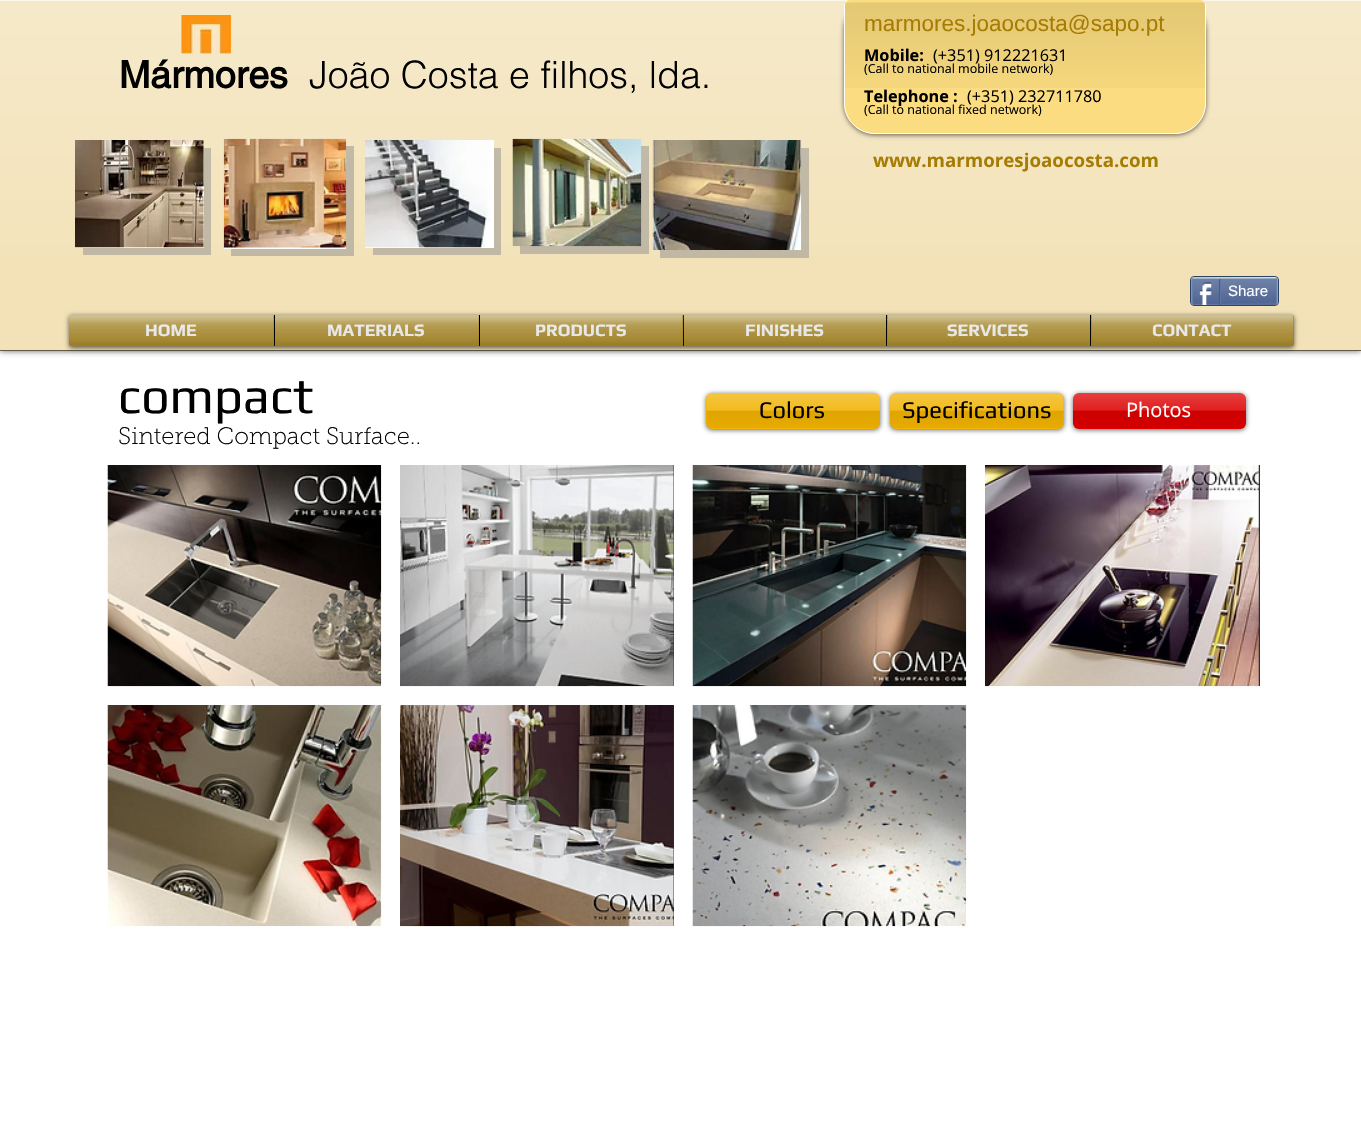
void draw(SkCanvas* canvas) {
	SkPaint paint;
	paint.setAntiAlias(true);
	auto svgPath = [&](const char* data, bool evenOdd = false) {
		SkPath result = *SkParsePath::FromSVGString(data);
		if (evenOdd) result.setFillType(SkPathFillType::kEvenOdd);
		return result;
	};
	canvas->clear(0xffffffff);
	paint.setColor(0x99000000);
	paint.setMaskFilter(SkMaskFilter::MakeBlur(kNormal_SkBlurStyle, 3));
	canvas->drawRect(SkRect::MakeXYWH(0, 0, 1361, 351), paint);
	paint.setMaskFilter(nullptr);
	paint.setColor(0xfff3e2b7);
	canvas->drawRect(SkRect::MakeXYWH(0, 1, 1361, 349), paint);
	canvas->drawImageRect(SkImages::DeferredFromEncodedData(SkData::MakeFromFileName("img1.png")), SkRect::MakeXYWH(0, 1, 1361, 255), SkSamplingOptions());
	paint.setColor(0xff615a49);
	canvas->drawRect(SkRect::MakeXYWH(0, 350, 1361, 1), paint);
	paint.setColor(0xfffbf6ea);
	canvas->drawRect(SkRect::MakeXYWH(0, 0, 1361, 1), paint);
	canvas->drawImageRect(SkImages::DeferredFromEncodedData(SkData::MakeFromFileName("img2.png")), SkRect::MakeXYWH(181, 15, 51, 39), SkSamplingOptions());
	paint.setColor(0x99000000);
	paint.setMaskFilter(SkMaskFilter::MakeBlur(kNormal_SkBlurStyle, 2.5));
	canvas->drawRoundRect(SkRect::MakeXYWH(844, 0, 362, 135), 31, 31, paint);
	paint.setMaskFilter(nullptr);
	paint.setColor(0xfffbdc80);
	canvas->drawPath(svgPath("M850-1H1200C1203.5-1 1206 1.5 1206 5V103C1206 120 1192 134 1175 134H875C858 134 844 120 844 103V5C844 1.5 846.5-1 850-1Z"), paint);
	canvas->drawImageRect(SkImages::DeferredFromEncodedData(SkData::MakeFromFileName("img3.png")), SkRect::MakeXYWH(844, 2, 362, 86), SkSamplingOptions());
	paint.setStroke(true);
	paint.setStrokeWidth(1);
	paint.setColor(0xffffffff);
	canvas->drawPath(svgPath("M850-.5H1200C1203-.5 1205.5 2 1205.5 5V103C1205.5 120 1192 133.5 1175 133.5H875C858 133.5 844.5 120 844.5 103V5C844.5 2 847-.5 850-.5Z"), paint);
	SkFont f1(fontMgr->matchFamilyStyle("Liberation Sans", SkFontStyle::Normal()), 22.5);
	f1.setSubpixel(true);
	paint.setStroke(false);
	paint.setColor(0xffa67d03);
	canvas->drawString("marmores.joaocosta@sapo.pt", 864, 31, f1, paint);
	SkFont f2(fontMgr->matchFamilyStyle("Open Sans", SkFontStyle::Bold()), 16.25);
	f2.setSubpixel(true);
	paint.setColor(0xff000000);
	canvas->drawString("Mobile:", 864, 61, f2, paint);
	SkFont f3(fontMgr->matchFamilyStyle("Open Sans", SkFontStyle::Normal()), 16.25);
	f3.setSubpixel(true);
	canvas->drawString("(+351) 912221631", 933, 61, f3, paint);
	SkFont f4(fontMgr->matchFamilyStyle("Open Sans", SkFontStyle::Normal()), 12.5);
	f4.setSubpixel(true);
	canvas->drawString("(Call to national mobile network)", 864, 73, f4, paint);
	canvas->drawString("Telephone :", 864, 102, f2, paint);
	canvas->drawString("(+351) 232711780", 967, 102, f3, paint);
	canvas->drawString("(Call to national fixed network)", 864, 114, f4, paint);
	SkFont f5(fontMgr->matchFamilyStyle("helvetica", SkFontStyle::Bold()), 37.5);
	f5.setSubpixel(true);
	canvas->drawString("Mármores", 119, 88, f5, paint);
	SkFont f6(fontMgr->matchFamilyStyle("helvetica", SkFontStyle(300, SkFontStyle::kNormal_Width, SkFontStyle::kUpright_Slant)), 37.5);
	f6.setSubpixel(true);
	canvas->drawString("João Costa e filhos, lda.", 309, 88, f6, paint);
	paint.setColor(0x808d8d8d);
	canvas->drawPath(svgPath("M83 248V255H211V148H204V248Z"), paint);
	paint.setColor(0xffffffff);
	canvas->drawRect(SkRect::MakeXYWH(75, 140, 129, 108), paint);
	canvas->drawImageRect(SkImages::DeferredFromEncodedData(SkData::MakeFromFileName("img4.png")), SkRect::MakeXYWH(75, 140, 129, 108), SkSamplingOptions());
	paint.setColor(0x808d8d8d);
	canvas->drawPath(svgPath("M231 249V256H354V146H346V249Z"), paint);
	paint.setColor(0xffffffff);
	canvas->drawRect(SkRect::MakeXYWH(224, 247, 122, 2), paint);
	canvas->drawImageRect(SkImages::DeferredFromEncodedData(SkData::MakeFromFileName("img5.png")), SkRect::MakeXYWH(223, 138, 124, 110), SkSamplingOptions());
	paint.setColor(0x808d8d8d);
	canvas->drawPath(svgPath("M373 248V255H501V148H494V248Z"), paint);
	paint.setColor(0xffffffff);
	canvas->drawRect(SkRect::MakeXYWH(365, 140, 129, 108), paint);
	canvas->drawImageRect(SkImages::DeferredFromEncodedData(SkData::MakeFromFileName("img6.png")), SkRect::MakeXYWH(365, 140, 125, 108), SkSamplingOptions());
	paint.setColor(0x808d8d8d);
	canvas->drawPath(svgPath("M520 246V254H649V146H641V246Z"), paint);
	canvas->drawImageRect(SkImages::DeferredFromEncodedData(SkData::MakeFromFileName("img7.png")), SkRect::MakeXYWH(512, 138, 130, 109), SkSamplingOptions());
	canvas->drawPath(svgPath("M660 250V258H809V148H801V250Z"), paint);
	canvas->drawImageRect(SkImages::DeferredFromEncodedData(SkData::MakeFromFileName("img8.png")), SkRect::MakeXYWH(652, 140, 150, 110), SkSamplingOptions());
	SkFont f7(fontMgr->matchFamilyStyle("Open Sans", SkFontStyle::Bold()), 18.75);
	f7.setSubpixel(true);
	paint.setColor(0xffa67d03);
	canvas->drawString("www.marmoresjoaocosta.com", 873, 167, f7, paint);
	paint.setStroke(true);
	paint.setColor(0xff2d4565);
	canvas->drawRoundRect(SkRect::MakeXYWH(1190.5, 276.5, 88, 29), 3.5, 3.5, paint);
	canvas->drawImageRect(SkImages::DeferredFromEncodedData(SkData::MakeFromFileName("img9.png")), SkRect::MakeXYWH(1191, 278, 87, 27), SkSamplingOptions());
	paint.setStrokeWidth(1.2);
	paint.setColor(0xff9aabc6);
	canvas->drawPath(svgPath("M1192.5 278.5L1194 278L1276.5 278.5"), paint);
	paint.setColor(0xff6f83ad);
	canvas->drawPath(svgPath("M1276.5 278.5L1277 280V302.5L1276.5 304"), paint);
	paint.setColor(0xff6176a3);
	canvas->drawPath(svgPath("M1276.5 304L1207.5 304.5H1194L1192.5 304"), paint);
	paint.setColor(0xff6f83ad);
	canvas->drawPath(svgPath("M1192.5 304L1192 302.5V280L1192.5 278.5"), paint);
	canvas->drawImageRect(SkImages::DeferredFromEncodedData(SkData::MakeFromFileName("img10.png")), SkRect::MakeXYWH(1199, 282, 13, 23), SkSamplingOptions());
	paint.setStroke(false);
	paint.setColor(0xff425e85);
	canvas->drawRect(SkRect::MakeXYWH(1219, 279, 1, 26), paint);
	SkFont f8(fontMgr->matchFamilyStyle("Liberation Sans", SkFontStyle::Normal()), 15);
	f8.setSubpixel(true);
	paint.setColor(0xffffffff);
	canvas->drawString("Share", 1228, 296, f8, paint);
	paint.setColor(0xff6176a3);
	canvas->drawRect(SkRect::MakeXYWH(1220, 279, 1, 25), paint);
	paint.setColor(0x99000000);
	paint.setMaskFilter(SkMaskFilter::MakeBlur(kNormal_SkBlurStyle, 2.5));
	canvas->drawRoundRect(SkRect::MakeXYWH(69, 316, 1225, 32), 2.5, 2.5, paint);
	paint.setMaskFilter(nullptr);
	canvas->drawImageRect(SkImages::DeferredFromEncodedData(SkData::MakeFromFileName("img11.png")), SkRect::MakeXYWH(69, 315, 1225, 31), SkSamplingOptions());
	canvas->drawImageRect(SkImages::DeferredFromEncodedData(SkData::MakeFromFileName("img12.png")), SkRect::MakeXYWH(69, 315, 1225, 31), SkSamplingOptions());
	paint.setColor(0xffa67d03);
	canvas->drawPath(svgPath("M71.5 315H274V346H71.5C70 346 69 345 69 343.5V317.5C69 316 70 315 71.5 315Z"), paint);
	SkFont f9(fontMgr->matchFamilyStyle("Play", SkFontStyle::Bold()), 17.5);
	f9.setSubpixel(true);
	paint.setColor(0xffffffff);
	canvas->drawString("HOME", 145, 336, f9, paint);
	canvas->drawImageRect(SkImages::DeferredFromEncodedData(SkData::MakeFromFileName("img13.png")), SkRect::MakeXYWH(69, 315, 205, 31), SkSamplingOptions());
	canvas->drawImageRect(SkImages::DeferredFromEncodedData(SkData::MakeFromFileName("img14.png")), SkRect::MakeXYWH(69, 315, 205, 31), SkSamplingOptions());
	paint.setColor(0xffa67d03);
	canvas->drawRect(SkRect::MakeXYWH(275, 315, 204, 31), paint);
	paint.setColor(0xff000000);
	canvas->drawRect(SkRect::MakeXYWH(274, 315, 1, 31), paint);
	paint.setColor(0xffffffff);
	canvas->drawString("MATERIALS", 327, 336, f9, paint);
	canvas->drawImageRect(SkImages::DeferredFromEncodedData(SkData::MakeFromFileName("img15.png")), SkRect::MakeXYWH(275, 315, 204, 31), SkSamplingOptions());
	canvas->drawImageRect(SkImages::DeferredFromEncodedData(SkData::MakeFromFileName("img16.png")), SkRect::MakeXYWH(275, 315, 204, 31), SkSamplingOptions());
	paint.setColor(0xffa67d03);
	canvas->drawRect(SkRect::MakeXYWH(480, 315, 203, 31), paint);
	paint.setColor(0xff000000);
	canvas->drawRect(SkRect::MakeXYWH(479, 315, 1, 31), paint);
	paint.setColor(0xffffffff);
	canvas->drawString("PRODUCTS", 535, 336, f9, paint);
	canvas->drawImageRect(SkImages::DeferredFromEncodedData(SkData::MakeFromFileName("img17.png")), SkRect::MakeXYWH(480, 315, 203, 31), SkSamplingOptions());
	canvas->drawImageRect(SkImages::DeferredFromEncodedData(SkData::MakeFromFileName("img18.png")), SkRect::MakeXYWH(480, 315, 203, 31), SkSamplingOptions());
	paint.setColor(0xffa67d03);
	canvas->drawRect(SkRect::MakeXYWH(684, 315, 202, 31), paint);
	paint.setColor(0xff000000);
	canvas->drawRect(SkRect::MakeXYWH(683, 315, 1, 31), paint);
	paint.setColor(0xffffffff);
	canvas->drawString("FINISHES", 745, 336, f9, paint);
	canvas->drawImageRect(SkImages::DeferredFromEncodedData(SkData::MakeFromFileName("img19.png")), SkRect::MakeXYWH(683, 315, 203, 31), SkSamplingOptions());
	canvas->drawImageRect(SkImages::DeferredFromEncodedData(SkData::MakeFromFileName("img20.png")), SkRect::MakeXYWH(684, 315, 202, 31), SkSamplingOptions());
	paint.setColor(0xffa67d03);
	canvas->drawRect(SkRect::MakeXYWH(887, 315, 203, 31), paint);
	paint.setColor(0xff000000);
	canvas->drawRect(SkRect::MakeXYWH(886, 315, 1, 31), paint);
	paint.setColor(0xffffffff);
	canvas->drawString("SERVICES", 947, 336, f9, paint);
	canvas->drawImageRect(SkImages::DeferredFromEncodedData(SkData::MakeFromFileName("img21.png")), SkRect::MakeXYWH(887, 315, 203, 31), SkSamplingOptions());
	canvas->drawImageRect(SkImages::DeferredFromEncodedData(SkData::MakeFromFileName("img22.png")), SkRect::MakeXYWH(887, 315, 203, 31), SkSamplingOptions());
	paint.setColor(0xffa67d03);
	canvas->drawPath(svgPath("M1090 315H1291.5C1293 315 1294 316 1294 317.5V343.5C1294 345 1293 346 1291.5 346H1090Z"), paint);
	paint.setColor(0xff000000);
	canvas->drawRect(SkRect::MakeXYWH(1090, 315, 1, 31), paint);
	paint.setColor(0xffffffff);
	canvas->drawString("CONTACT", 1152, 336, f9, paint);
	canvas->drawImageRect(SkImages::DeferredFromEncodedData(SkData::MakeFromFileName("img23.png")), SkRect::MakeXYWH(1091, 315, 203, 31), SkSamplingOptions());
	canvas->drawImageRect(SkImages::DeferredFromEncodedData(SkData::MakeFromFileName("img24.png")), SkRect::MakeXYWH(1091, 315, 203, 31), SkSamplingOptions());
	SkFont f10(fontMgr->matchFamilyStyle("Play", SkFontStyle::Normal()), 50);
	f10.setSubpixel(true);
	paint.setColor(0xff000000);
	canvas->drawString("compact", 118, 413, f10, paint);
	SkFont f11(fontMgr->matchFamilyStyle("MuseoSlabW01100", SkFontStyle(100, SkFontStyle::kNormal_Width, SkFontStyle::kUpright_Slant)), 23.75);
	f11.setSubpixel(true);
	canvas->drawString("Sintered Compact Surface..", 118, 444, f11, paint);
	paint.setColor(0x99000000);
	paint.setMaskFilter(SkMaskFilter::MakeBlur(kNormal_SkBlurStyle, 2.5));
	canvas->drawRoundRect(SkRect::MakeXYWH(706, 394, 174, 36), 6, 6, paint);
	paint.setMaskFilter(nullptr);
	paint.setColor(0xfff1b201);
	canvas->drawRoundRect(SkRect::MakeXYWH(706, 393, 174, 36), 6, 6, paint);
	canvas->drawImageRect(SkImages::DeferredFromEncodedData(SkData::MakeFromFileName("img25.png")), SkRect::MakeXYWH(706, 393, 174, 35), SkSamplingOptions());
	SkFont f12(fontMgr->matchFamilyStyle("Play", SkFontStyle::Normal()), 23.75);
	f12.setSubpixel(true);
	paint.setColor(0xff000000);
	canvas->drawString("Colors", 759, 418, f12, paint);
	paint.setColor(0x99000000);
	paint.setMaskFilter(SkMaskFilter::MakeBlur(kNormal_SkBlurStyle, 2.5));
	canvas->drawRoundRect(SkRect::MakeXYWH(890, 394, 174, 36), 6, 6, paint);
	paint.setMaskFilter(nullptr);
	paint.setColor(0xfff1b201);
	canvas->drawRoundRect(SkRect::MakeXYWH(890, 393, 174, 36), 6, 6, paint);
	canvas->drawImageRect(SkImages::DeferredFromEncodedData(SkData::MakeFromFileName("img26.png")), SkRect::MakeXYWH(890, 393, 174, 35), SkSamplingOptions());
	paint.setColor(0xff000000);
	canvas->drawString("Specifications", 902, 418, f12, paint);
	paint.setColor(0x99000000);
	paint.setMaskFilter(SkMaskFilter::MakeBlur(kNormal_SkBlurStyle, 2.5));
	canvas->drawRoundRect(SkRect::MakeXYWH(1073, 394, 173, 36), 6, 6, paint);
	paint.setMaskFilter(nullptr);
	paint.setColor(0xffdd0000);
	canvas->drawRoundRect(SkRect::MakeXYWH(1073, 393, 173, 36), 6, 6, paint);
	canvas->drawImageRect(SkImages::DeferredFromEncodedData(SkData::MakeFromFileName("img27.png")), SkRect::MakeXYWH(1073, 393, 173, 35), SkSamplingOptions());
	SkFont f13(fontMgr->matchFamilyStyle("Open Sans", SkFontStyle::Normal()), 20);
	f13.setSubpixel(true);
	paint.setColor(0xffffffff);
	canvas->drawString("Photos", 1126, 417, f13, paint);
	canvas->drawImageRect(SkImages::DeferredFromEncodedData(SkData::MakeFromFileName("img28.png")), SkRect::MakeXYWH(107, 465, 275, 222), SkSamplingOptions());
	paint.setColor(0xff2f2e2e);
	canvas->drawRect(SkRect::MakeXYWH(673, 465, 1, 221), paint);
	canvas->drawImageRect(SkImages::DeferredFromEncodedData(SkData::MakeFromFileName("img29.png")), SkRect::MakeXYWH(400, 465, 274, 222), SkSamplingOptions());
	canvas->drawImageRect(SkImages::DeferredFromEncodedData(SkData::MakeFromFileName("img30.png")), SkRect::MakeXYWH(692, 465, 275, 222), SkSamplingOptions());
	canvas->drawRect(SkRect::MakeXYWH(1258, 465, 2, 221), paint);
	canvas->drawImageRect(SkImages::DeferredFromEncodedData(SkData::MakeFromFileName("img31.png")), SkRect::MakeXYWH(985, 465, 274, 222), SkSamplingOptions());
	canvas->drawImageRect(SkImages::DeferredFromEncodedData(SkData::MakeFromFileName("img32.png")), SkRect::MakeXYWH(107, 705, 275, 222), SkSamplingOptions());
	canvas->drawRect(SkRect::MakeXYWH(673, 705, 1, 221), paint);
	canvas->drawImageRect(SkImages::DeferredFromEncodedData(SkData::MakeFromFileName("img33.png")), SkRect::MakeXYWH(400, 705, 274, 222), SkSamplingOptions());
	canvas->drawImageRect(SkImages::DeferredFromEncodedData(SkData::MakeFromFileName("img34.png")), SkRect::MakeXYWH(692, 705, 275, 222), SkSamplingOptions());
}
